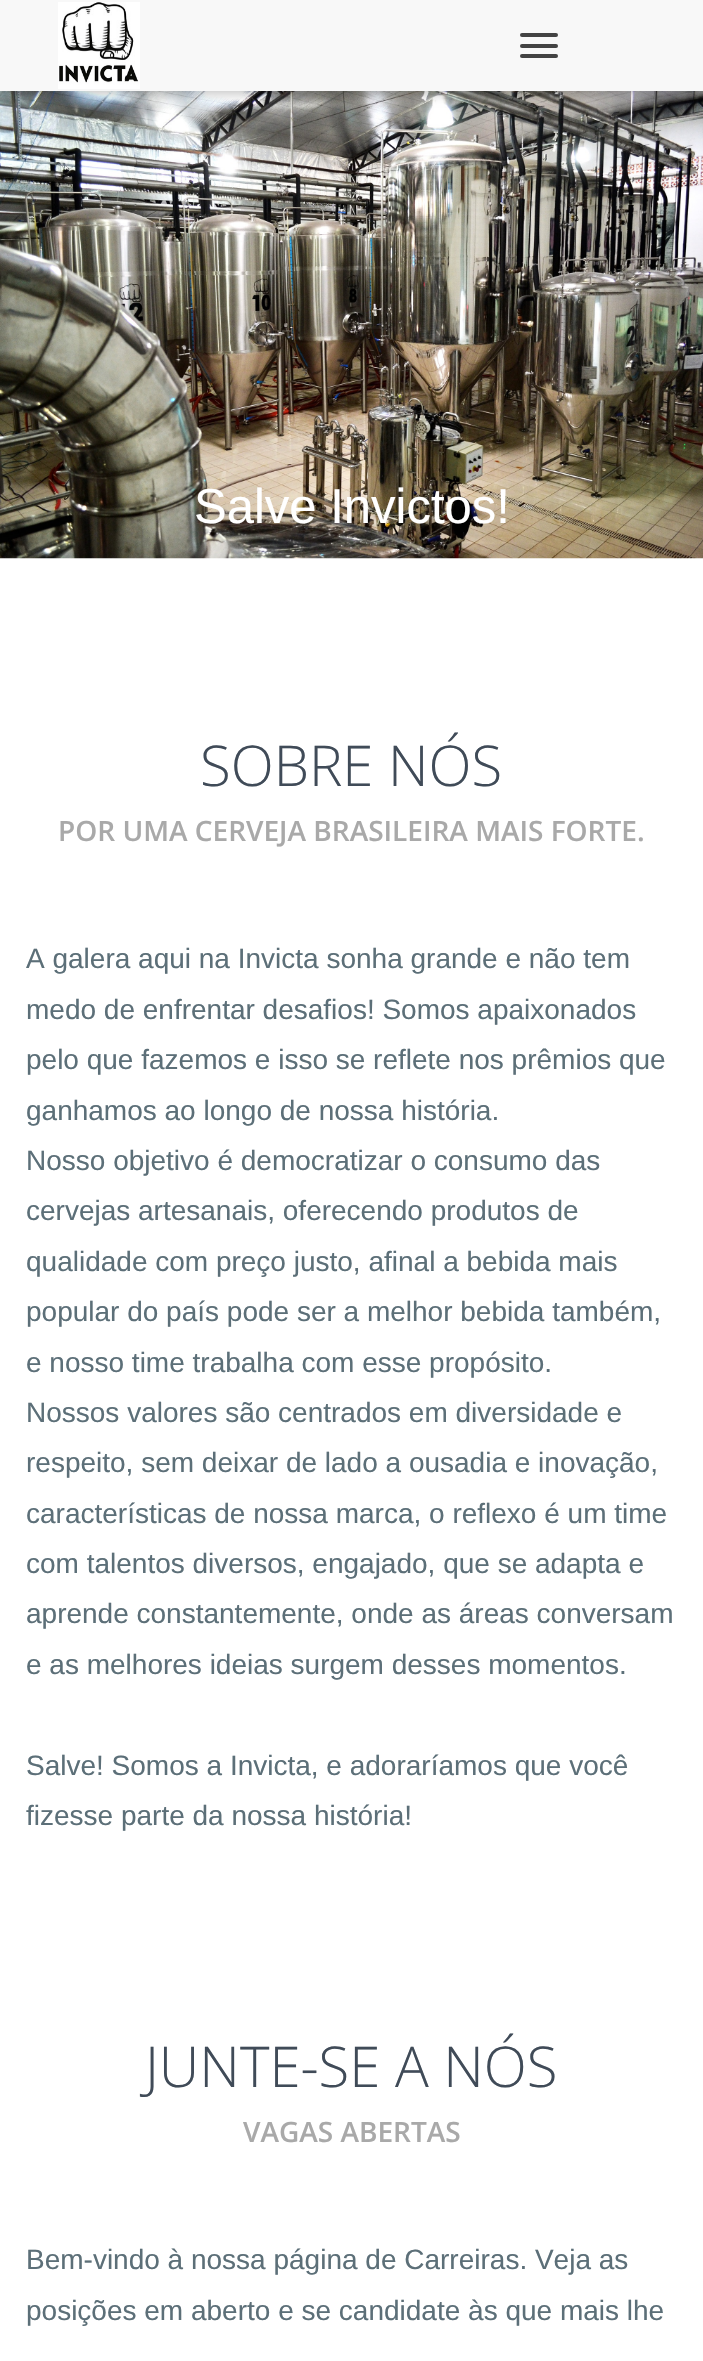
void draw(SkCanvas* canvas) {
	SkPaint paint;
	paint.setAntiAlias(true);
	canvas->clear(0xffffffff);
	canvas->drawImageRect(SkImages::DeferredFromEncodedData(SkData::MakeFromFileName("img2.png")), SkRect::MakeXYWH(0, 91, 703, 468), SkSamplingOptions());
	paint.setColor(0x33000000);
	paint.setMaskFilter(SkMaskFilter::MakeBlur(kNormal_SkBlurStyle, 4.5));
	canvas->drawRect(SkRect::MakeXYWH(0, 4, 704, 91), paint);
	paint.setMaskFilter(nullptr);
	paint.setColor(0xfff8f8f8);
	canvas->drawRect(SkRect::MakeXYWH(0, 0, 703, 91), paint);
	canvas->drawImageRect(SkImages::DeferredFromEncodedData(SkData::MakeFromFileName("img1.png")), SkRect::MakeXYWH(58, 2, 82, 87), SkSamplingOptions());
	paint.setColor(0xff434343);
	canvas->drawRoundRect(SkRect::MakeXYWH(520, 33, 38, 4), 2, 2, paint);
	canvas->drawRoundRect(SkRect::MakeXYWH(520, 44, 38, 4), 2, 2, paint);
	canvas->drawRoundRect(SkRect::MakeXYWH(520, 54, 38, 4), 2, 2, paint);
	SkFont f1(fontMgr->matchFamilyStyle("Liberation Sans", SkFontStyle::Normal()), 49);
	f1.setSubpixel(true);
	paint.setColor(0xffffffff);
	canvas->drawString("Salve Invictos!", 194, 523, f1, paint);
	SkFont f2(fontMgr->matchFamilyStyle("Open Sans", SkFontStyle(300, SkFontStyle::kNormal_Width, SkFontStyle::kUpright_Slant)), 56.25);
	f2.setSubpixel(true);
	paint.setColor(0xff404b58);
	canvas->drawString("SOBRE NÓS", 200, 786, f2, paint);
	SkFont f3(fontMgr->matchFamilyStyle("Open Sans", SkFontStyle(600, SkFontStyle::kNormal_Width, SkFontStyle::kUpright_Slant)), 28);
	f3.setSubpixel(true);
	paint.setColor(0xffa9a9a9);
	canvas->drawString("POR UMA CERVEJA BRASILEIRA MAIS FORTE.", 58, 841, f3, paint);
	SkFont f4(fontMgr->matchFamilyStyle("Liberation Sans", SkFontStyle::Normal()), 28);
	f4.setSubpixel(true);
	paint.setColor(0xff5c6f78);
	canvas->drawString("A galera aqui na Invicta sonha grande e não tem", 26, 968, f4, paint);
	canvas->drawString("medo de enfrentar desafios! Somos apaixonados", 26, 1019, f4, paint);
	canvas->drawString("pelo que fazemos e isso se reflete nos prêmios que", 26, 1069, f4, paint);
	canvas->drawString("ganhamos ao longo de nossa história.", 26, 1120, f4, paint);
	canvas->drawString("Nosso objetivo é democratizar o consumo das", 26, 1170, f4, paint);
	canvas->drawString("cervejas artesanais, oferecendo produtos de", 26, 1220, f4, paint);
	canvas->drawString("qualidade com preço justo, afinal a bebida mais", 26, 1271, f4, paint);
	canvas->drawString("popular do país pode ser a melhor bebida também,", 26, 1321, f4, paint);
	canvas->drawString("e nosso time trabalha com esse propósito.", 26, 1372, f4, paint);
	canvas->drawString("Nossos valores são centrados em diversidade e", 26, 1422, f4, paint);
	canvas->drawString("respeito, sem deixar de lado a ousadia e inovação,", 26, 1472, f4, paint);
	canvas->drawString("características de nossa marca, o reflexo é um time", 26, 1523, f4, paint);
	canvas->drawString("com talentos diversos, engajado, que se adapta e", 26, 1573, f4, paint);
	canvas->drawString("aprende constantemente, onde as áreas conversam", 26, 1623, f4, paint);
	canvas->drawString("e as melhores ideias surgem desses momentos.", 26, 1674, f4, paint);
	canvas->drawString("Salve! Somos a Invicta, e adoraríamos que você", 26, 1775, f4, paint);
	canvas->drawString("fizesse parte da nossa história!", 26, 1825, f4, paint);
	paint.setColor(0xff404b58);
	canvas->drawString("JUNTE-SE A NÓS", 145, 2087, f2, paint);
	paint.setColor(0xffa9a9a9);
	canvas->drawString("VAGAS ABERTAS", 243, 2142, f3, paint);
	paint.setColor(0xff5c6f78);
	canvas->drawString("Bem-vindo à nossa página de Carreiras. Veja as", 26, 2269, f4, paint);
	canvas->drawString("posições em aberto e se candidate às que mais lhe", 26, 2320, f4, paint);
}
